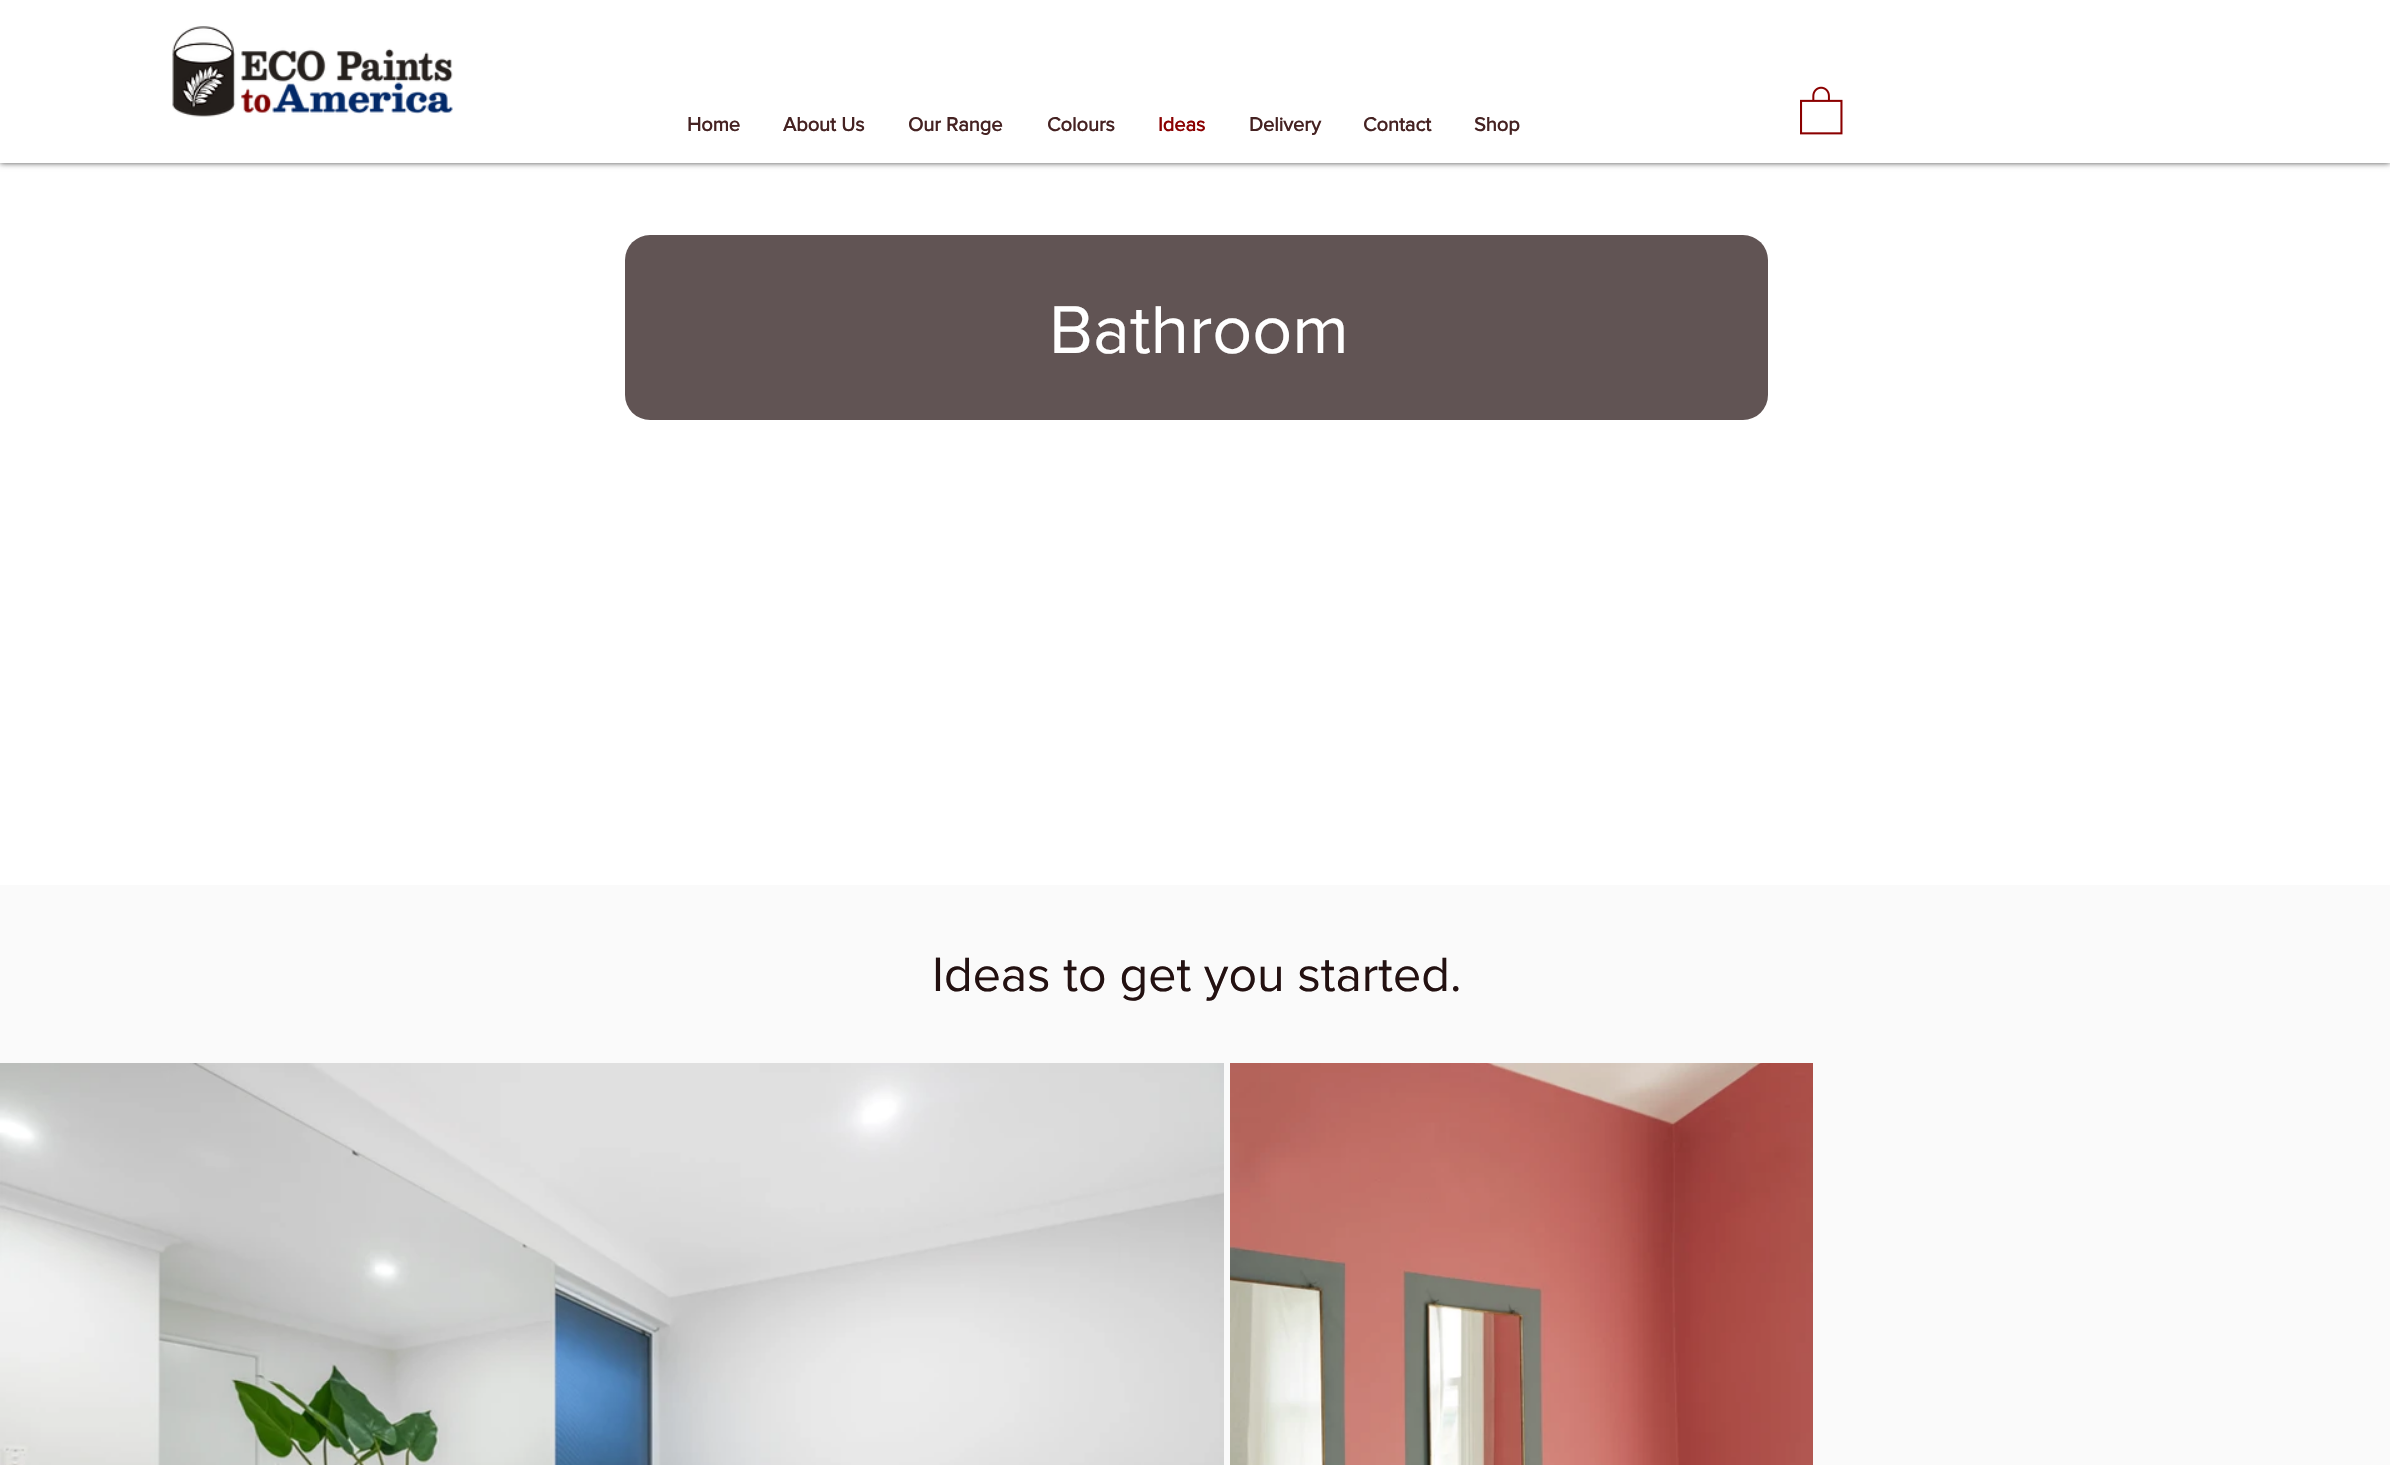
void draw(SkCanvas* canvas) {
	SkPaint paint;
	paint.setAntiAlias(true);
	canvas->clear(0xffffffff);
	paint.setColor(0xb3000000);
	paint.setMaskFilter(SkMaskFilter::MakeBlur(kNormal_SkBlurStyle, 3));
	canvas->drawRect(SkRect::MakeXYWH(0, 0, 2390, 163), paint);
	paint.setMaskFilter(nullptr);
	paint.setColor(0xffffffff);
	canvas->drawRect(SkRect::MakeXYWH(0, 0, 2390, 163), paint);
	canvas->drawImageRect(SkImages::DeferredFromEncodedData(SkData::MakeFromFileName("img1.png")), SkRect::MakeXYWH(172, 26, 281, 91), SkSamplingOptions());
	SkFont f1(fontMgr->matchFamilyStyle("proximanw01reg", SkFontStyle::Bold()), 20);
	f1.setSubpixel(true);
	paint.setColor(0xff452222);
	canvas->drawString("Home", 687, 131, f1, paint);
	canvas->drawString("About Us", 783, 131, f1, paint);
	canvas->drawString("Our Range", 908, 131, f1, paint);
	canvas->drawString("Colours", 1047, 131, f1, paint);
	paint.setColor(0xff8b0000);
	canvas->drawString("Ideas", 1158, 131, f1, paint);
	paint.setColor(0xff452222);
	canvas->drawString("Delivery", 1249, 131, f1, paint);
	canvas->drawString("Contact", 1363, 131, f1, paint);
	canvas->drawString("Shop", 1474, 131, f1, paint);
	canvas->drawImageRect(SkImages::DeferredFromEncodedData(SkData::MakeFromFileName("img2.png")), SkRect::MakeXYWH(1800, 86, 43, 49), SkSamplingOptions());
	paint.setColor(0xff615454);
	canvas->drawRoundRect(SkRect::MakeXYWH(625, 235, 1143, 185), 25, 25, paint);
	SkFont f2(fontMgr->matchFamilyStyle("proximanw01reg", SkFontStyle::Normal()), 70);
	f2.setSubpixel(true);
	paint.setColor(0xffffffff);
	canvas->drawString("Bathroom", 1049, 353, f2, paint);
	paint.setColor(0xfffafafa);
	canvas->drawRect(SkRect::MakeXYWH(0, 885, 2390, 580), paint);
	SkFont f3(fontMgr->matchFamilyStyle("proximanw01reg", SkFontStyle::Normal()), 50);
	f3.setSubpixel(true);
	paint.setColor(0xff231111);
	canvas->drawString("Ideas to get you started.", 932, 991, f3, paint);
	canvas->drawImageRect(SkImages::DeferredFromEncodedData(SkData::MakeFromFileName("img3.png")), SkRect::MakeXYWH(0, 1063, 1224, 402), SkSamplingOptions());
	canvas->drawImageRect(SkImages::DeferredFromEncodedData(SkData::MakeFromFileName("img4.png")), SkRect::MakeXYWH(1230, 1063, 583, 402), SkSamplingOptions());
}
